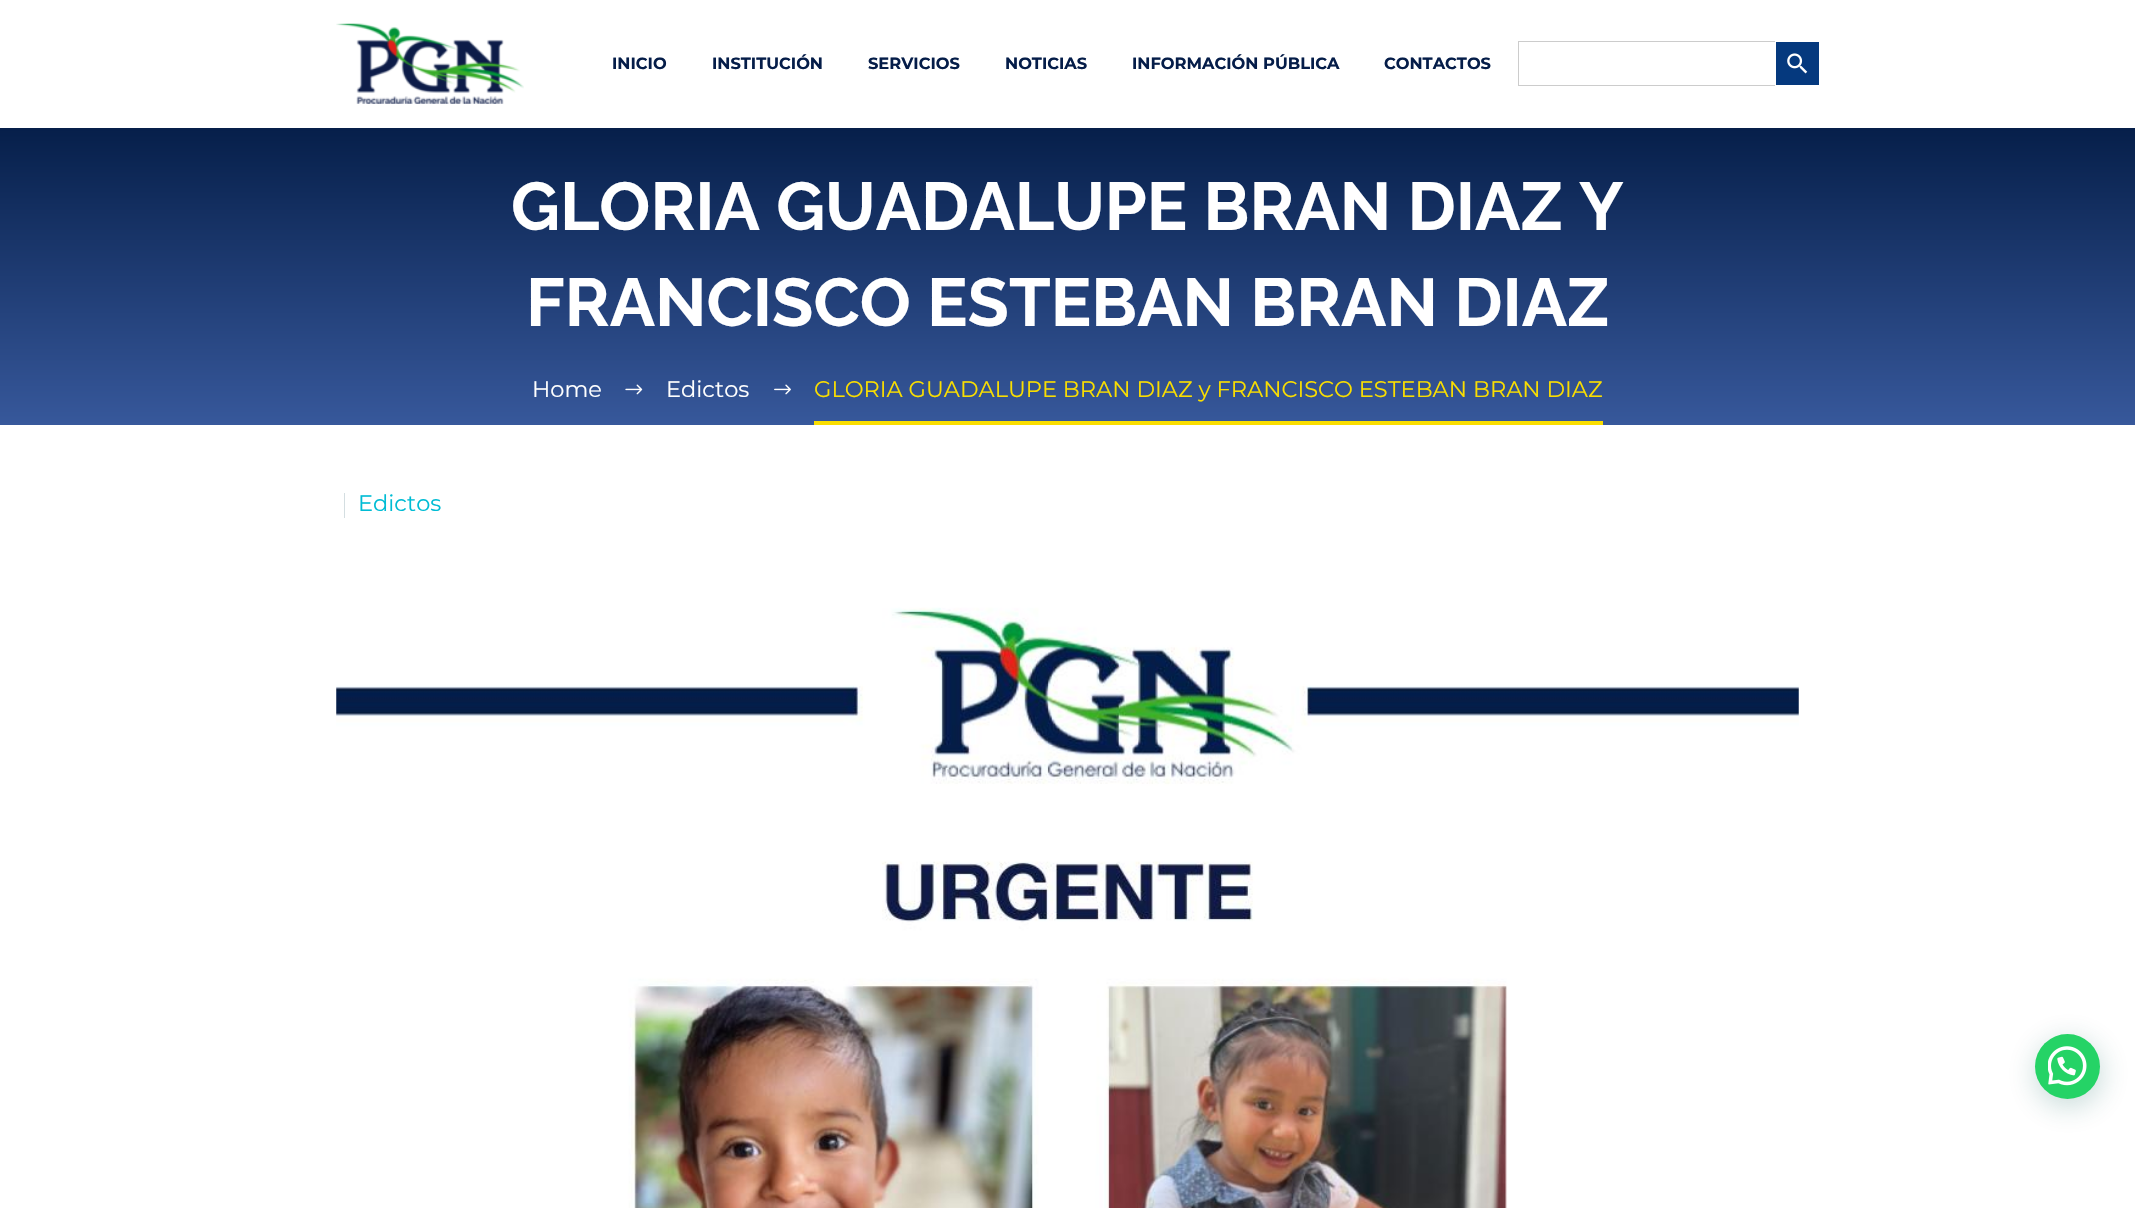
void draw(SkCanvas* canvas) {
	SkPaint paint;
	paint.setAntiAlias(true);
	canvas->clear(0xffffffff);
	canvas->drawImageRect(SkImages::DeferredFromEncodedData(SkData::MakeFromFileName("img1.png")), SkRect::MakeXYWH(336, 23, 188, 81), SkSamplingOptions());
	SkFont f1(fontMgr->matchFamilyStyle("Montserrat", SkFontStyle::Bold()), 16.25);
	f1.setSubpixel(true);
	paint.setColor(0xff051d49);
	canvas->drawString("INICIO", 612, 69, f1, paint);
	canvas->drawString("INSTITUCIÓN", 712, 69, f1, paint);
	canvas->drawString("SERVICIOS", 868, 69, f1, paint);
	canvas->drawString("NOTICIAS", 1005, 69, f1, paint);
	canvas->drawString("INFORMACIÓN PÚBLICA", 1132, 69, f1, paint);
	canvas->drawString("CONTACTOS", 1384, 69, f1, paint);
	paint.setColor(0xffcccccc);
	canvas->drawRect(SkRect::MakeXYWH(1518, 41, 257, 1), paint);
	canvas->drawRect(SkRect::MakeXYWH(1518, 85, 257, 1), paint);
	canvas->drawRect(SkRect::MakeXYWH(1518, 41, 1, 45), paint);
	paint.setColor(0xff05397e);
	canvas->drawRect(SkRect::MakeXYWH(1776, 42, 43, 43), paint);
	canvas->drawImageRect(SkImages::DeferredFromEncodedData(SkData::MakeFromFileName("img2.png")), SkRect::MakeXYWH(1787, 53, 21, 21), SkSamplingOptions());
	{
		const SkColor colors[] = {0xff37589b, 0xff061f4a};
		const float stops[] = {0, 1};
		const SkPoint ends[] = {{1068, 425}, {1068, 128}};
		paint.setShader(SkGradientShader::MakeLinear(ends, colors, stops, 2, SkTileMode::kClamp));
		paint.setAlpha(255);
	}
	canvas->drawRect(SkRect::MakeXYWH(0, 128, 2135, 297), paint);
	SkFont f2(fontMgr->matchFamilyStyle("Raleway", SkFontStyle::Bold()), 67.5);
	f2.setSubpixel(true);
	paint.setShader(nullptr);
	paint.setColor(0xffffffff);
	canvas->drawString("GLORIA GUADALUPE BRAN DIAZ Y", 511, 230, f2, paint);
	canvas->drawString("FRANCISCO ESTEBAN BRAN DIAZ", 526, 326, f2, paint);
	SkFont f3(fontMgr->matchFamilyStyle("Montserrat", SkFontStyle::Normal()), 22.5);
	f3.setSubpixel(true);
	canvas->drawString("Home", 532, 397, f3, paint);
	canvas->drawImageRect(SkImages::DeferredFromEncodedData(SkData::MakeFromFileName("img3.png")), SkRect::MakeXYWH(625, 384, 18, 11), SkSamplingOptions());
	canvas->drawString("Edictos", 666, 397, f3, paint);
	canvas->drawImageRect(SkImages::DeferredFromEncodedData(SkData::MakeFromFileName("img4.png")), SkRect::MakeXYWH(774, 384, 17, 11), SkSamplingOptions());
	paint.setColor(0xfffade00);
	canvas->drawRect(SkRect::MakeXYWH(814, 421, 789, 4), paint);
	canvas->drawString("GLORIA GUADALUPE BRAN DIAZ y FRANCISCO ESTEBAN BRAN DIAZ", 814, 397, f3, paint);
	paint.setColor(0xffd4dee1);
	canvas->drawRect(SkRect::MakeXYWH(344, 493, 1, 25), paint);
	paint.setColor(0xff00bcd4);
	canvas->drawString("Edictos", 358, 511, f3, paint);
	canvas->drawImageRect(SkImages::DeferredFromEncodedData(SkData::MakeFromFileName("img5.png")), SkRect::MakeXYWH(336, 607, 1463, 601), SkSamplingOptions());
	paint.setColor(0x3d075e54);
	paint.setMaskFilter(SkMaskFilter::MakeBlur(kNormal_SkBlurStyle, 15));
	canvas->drawRoundRect(SkRect::MakeXYWH(2036, 1041, 65, 65), 32.5, 32.5, paint);
	paint.setMaskFilter(nullptr);
	paint.setColor(0xff25d366);
	canvas->drawCircle(2067.5, 1066.5, 32.5, paint);
	canvas->drawImageRect(SkImages::DeferredFromEncodedData(SkData::MakeFromFileName("img6.png")), SkRect::MakeXYWH(2048, 1046, 39, 40), SkSamplingOptions());
}
